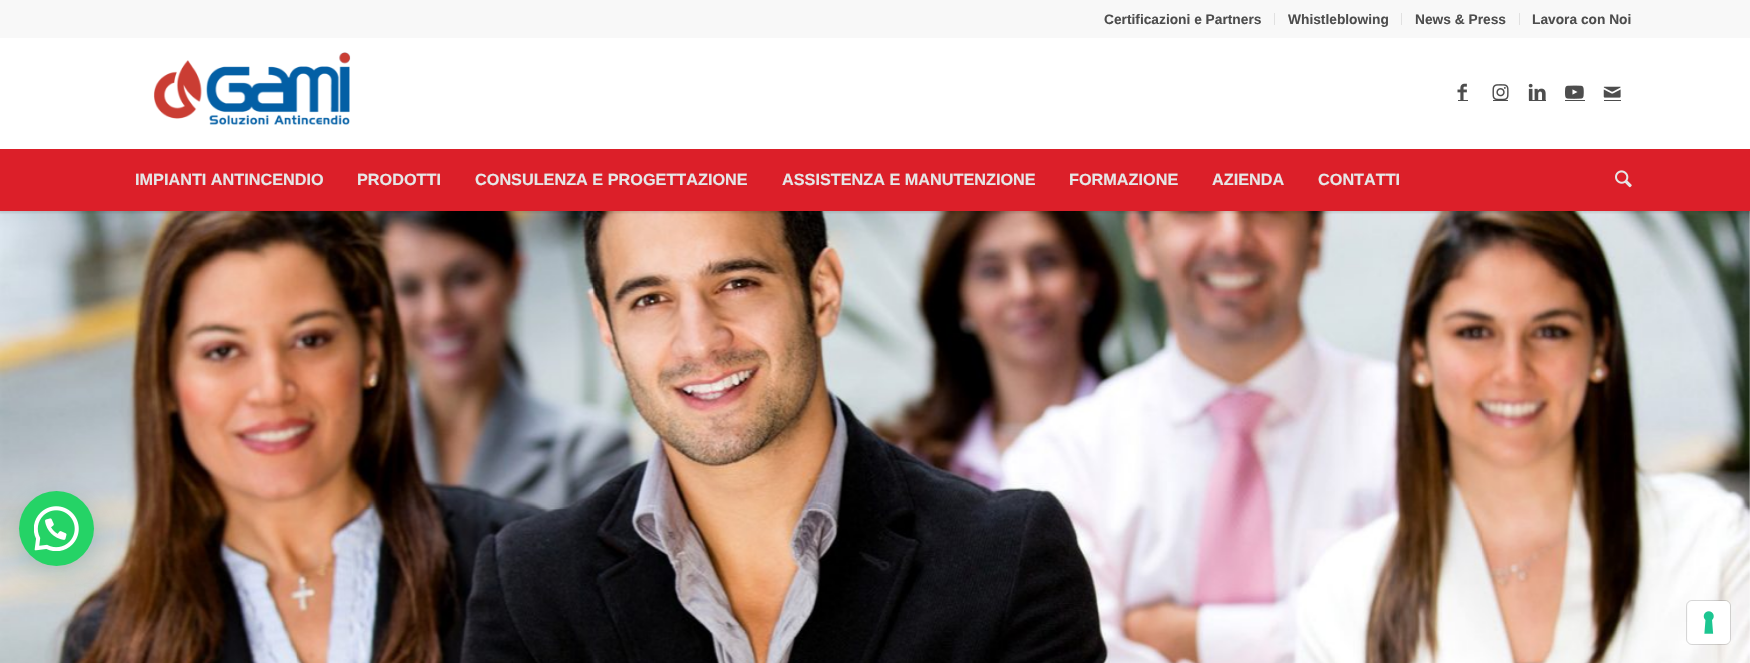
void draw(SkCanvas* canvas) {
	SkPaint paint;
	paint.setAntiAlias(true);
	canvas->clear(0xffffffff);
	canvas->drawImageRect(SkImages::DeferredFromEncodedData(SkData::MakeFromFileName("img8.png")), SkRect::MakeXYWH(0, 211, 1750, 452), SkSamplingOptions());
	canvas->save();
	canvas->clipRect(SkRect::MakeXYWH(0, 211, 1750, 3));
	paint.setColor(0x1a000000);
	paint.setMaskFilter(SkMaskFilter::MakeBlur(kNormal_SkBlurStyle, 1));
	canvas->drawRect(SkRect::MakeXYWH(-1, -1, 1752, 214), paint);
	paint.setMaskFilter(nullptr);
	canvas->restore();
	paint.setColor(0xfff8f8f8);
	canvas->drawRect(SkRect::MakeXYWH(0, 0, 1750, 38), paint);
	paint.setColor(0xffe1e1e1);
	canvas->drawRect(SkRect::MakeXYWH(1274, 13, 1, 12), paint);
	SkFont f1(fontMgr->matchFamilyStyle("Liberation Sans", SkFontStyle::Bold()), 13.75);
	f1.setSubpixel(true);
	paint.setColor(0xff4d4d4d);
	canvas->drawString("Certificazioni e Partners", 1104, 24, f1, paint);
	paint.setColor(0xffe1e1e1);
	canvas->drawRect(SkRect::MakeXYWH(1401, 13, 1, 12), paint);
	paint.setColor(0xff4d4d4d);
	canvas->drawString("Whistleblowing", 1288, 24, f1, paint);
	paint.setColor(0xffe1e1e1);
	canvas->drawRect(SkRect::MakeXYWH(1519, 13, 1, 12), paint);
	paint.setColor(0xff4d4d4d);
	canvas->drawString("News & Press", 1415, 24, f1, paint);
	canvas->drawString("Lavora con Noi", 1532, 24, f1, paint);
	canvas->drawImageRect(SkImages::DeferredFromEncodedData(SkData::MakeFromFileName("img1.png")), SkRect::MakeXYWH(153, 52, 198, 73), SkSamplingOptions());
	canvas->drawImageRect(SkImages::DeferredFromEncodedData(SkData::MakeFromFileName("img2.png")), SkRect::MakeXYWH(1457, 83, 10, 17), SkSamplingOptions());
	canvas->drawRect(SkRect::MakeXYWH(1458, 100, 10, 1), paint);
	canvas->drawImageRect(SkImages::DeferredFromEncodedData(SkData::MakeFromFileName("img3.png")), SkRect::MakeXYWH(1492, 84, 17, 16), SkSamplingOptions());
	canvas->drawRect(SkRect::MakeXYWH(1493, 100, 15, 1), paint);
	canvas->drawRect(SkRect::MakeXYWH(1529, 100, 17, 1), paint);
	canvas->drawImageRect(SkImages::DeferredFromEncodedData(SkData::MakeFromFileName("img4.png")), SkRect::MakeXYWH(1528, 83, 18, 18), SkSamplingOptions());
	canvas->drawImageRect(SkImages::DeferredFromEncodedData(SkData::MakeFromFileName("img5.png")), SkRect::MakeXYWH(1565, 85, 19, 14), SkSamplingOptions());
	canvas->drawRect(SkRect::MakeXYWH(1565, 100, 20, 1), paint);
	canvas->drawImageRect(SkImages::DeferredFromEncodedData(SkData::MakeFromFileName("img6.png")), SkRect::MakeXYWH(1603, 86, 18, 12), SkSamplingOptions());
	canvas->drawRect(SkRect::MakeXYWH(1604, 100, 17, 1), paint);
	paint.setColor(0xffdc1f29);
	canvas->drawRect(SkRect::MakeXYWH(0, 149, 1750, 62), paint);
	SkFont f2(fontMgr->matchFamilyStyle("Liberation Sans", SkFontStyle::Bold()), 16.25);
	f2.setSubpixel(true);
	paint.setColor(0xffe6e6e6);
	canvas->drawString("IMPIANTI ANTINCENDIO", 135, 185, f2, paint);
	canvas->drawString("PRODOTTI", 357, 185, f2, paint);
	canvas->drawString("CONSULENZA E PROGETTAZIONE", 475, 185, f2, paint);
	canvas->drawString("ASSISTENZA E MANUTENZIONE", 782, 185, f2, paint);
	canvas->drawString("FORMAZIONE", 1069, 185, f2, paint);
	canvas->drawString("AZIENDA", 1212, 185, f2, paint);
	canvas->drawString("CONTATTI", 1318, 185, f2, paint);
	canvas->drawImageRect(SkImages::DeferredFromEncodedData(SkData::MakeFromFileName("img7.png")), SkRect::MakeXYWH(1615, 170, 17, 18), SkSamplingOptions());
	paint.setColor(0x3d075e54);
	paint.setMaskFilter(SkMaskFilter::MakeBlur(kNormal_SkBlurStyle, 15));
	canvas->drawRoundRect(SkRect::MakeXYWH(20, 499, 75, 75), 37.5, 37.5, paint);
	paint.setMaskFilter(nullptr);
	paint.setColor(0xff25d366);
	canvas->drawCircle(56.5, 528.5, 37.5, paint);
	canvas->drawImageRect(SkImages::DeferredFromEncodedData(SkData::MakeFromFileName("img9.png")), SkRect::MakeXYWH(34, 506, 45, 45), SkSamplingOptions());
	paint.setStroke(true);
	paint.setStrokeWidth(1);
	paint.setColor(0x26000000);
	canvas->drawRoundRect(SkRect::MakeXYWH(1686.5, 600.5, 44, 44), 5.5, 5.5, paint);
	paint.setStroke(false);
	paint.setColor(0xffffffff);
	canvas->drawRoundRect(SkRect::MakeXYWH(1688, 601, 42, 43), 5, 5, paint);
	canvas->drawImageRect(SkImages::DeferredFromEncodedData(SkData::MakeFromFileName("img10.png")), SkRect::MakeXYWH(1703, 611, 11, 23), SkSamplingOptions());
}
